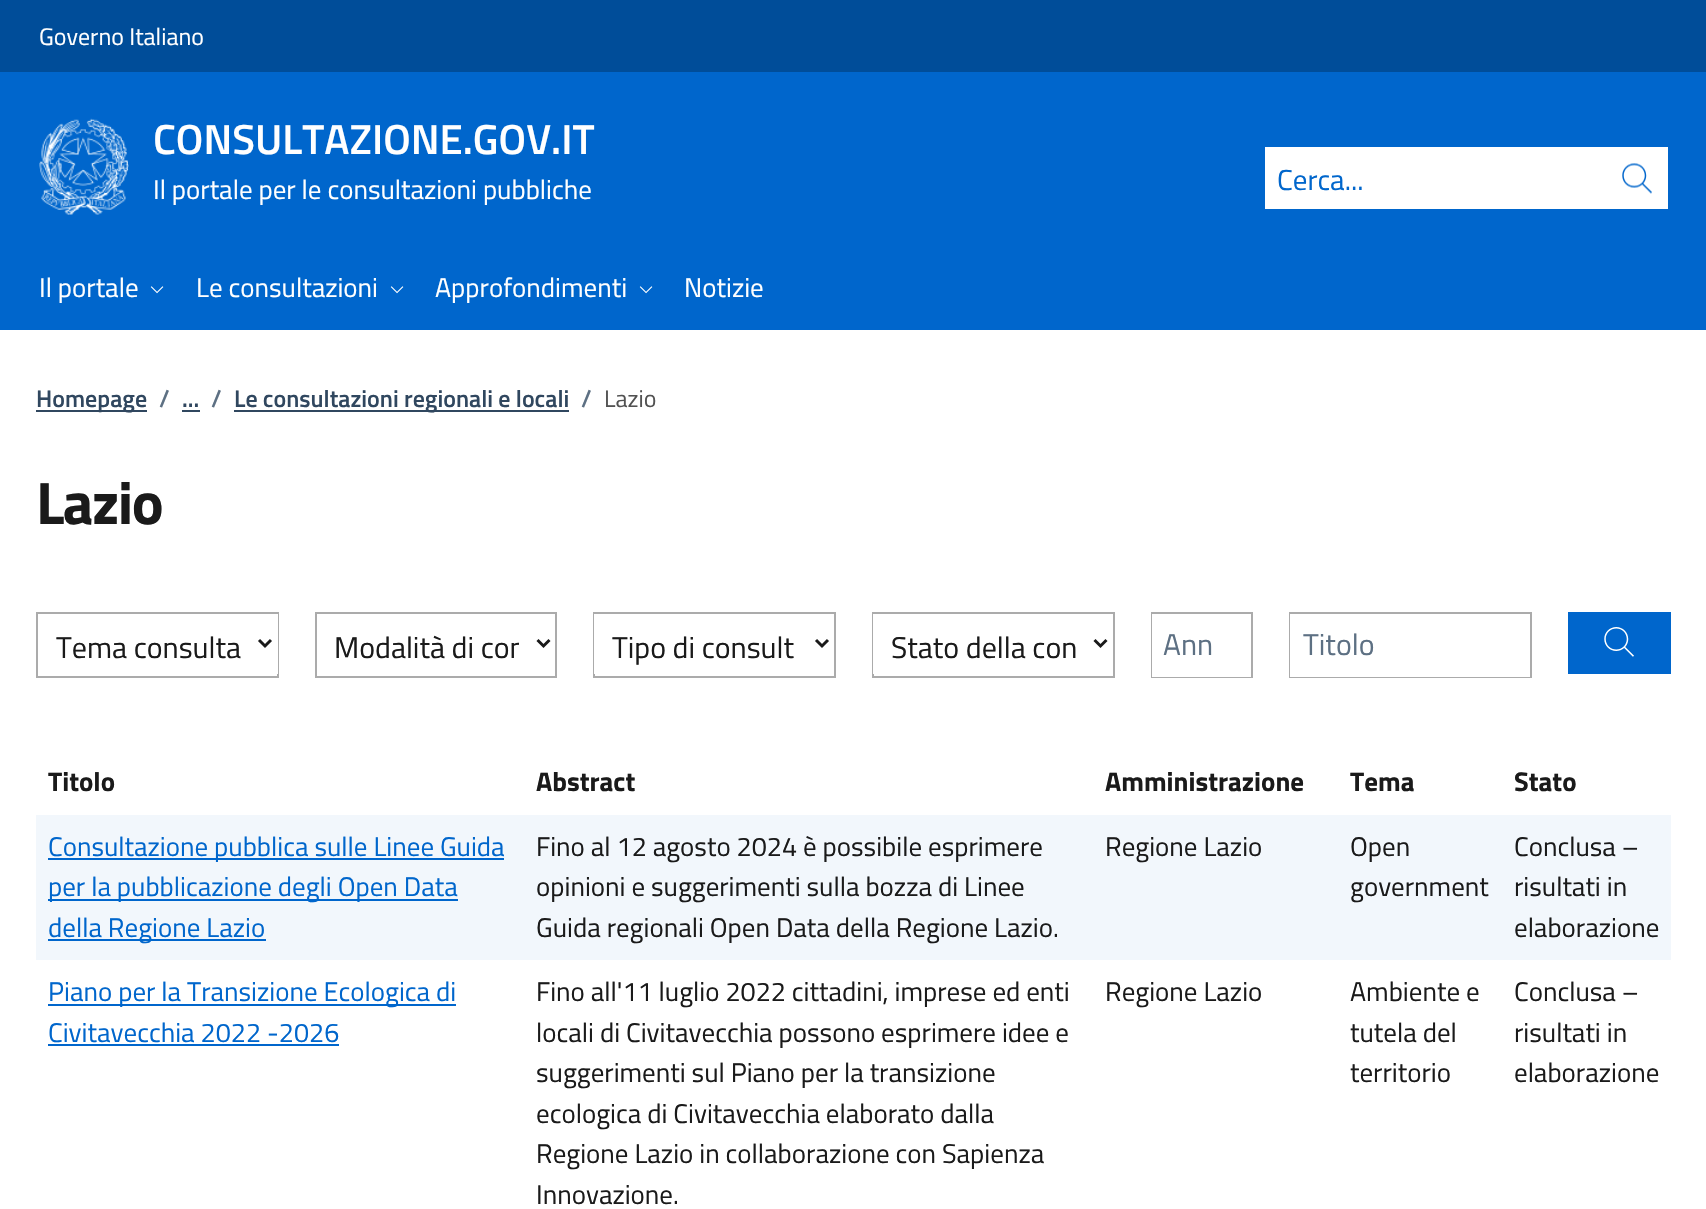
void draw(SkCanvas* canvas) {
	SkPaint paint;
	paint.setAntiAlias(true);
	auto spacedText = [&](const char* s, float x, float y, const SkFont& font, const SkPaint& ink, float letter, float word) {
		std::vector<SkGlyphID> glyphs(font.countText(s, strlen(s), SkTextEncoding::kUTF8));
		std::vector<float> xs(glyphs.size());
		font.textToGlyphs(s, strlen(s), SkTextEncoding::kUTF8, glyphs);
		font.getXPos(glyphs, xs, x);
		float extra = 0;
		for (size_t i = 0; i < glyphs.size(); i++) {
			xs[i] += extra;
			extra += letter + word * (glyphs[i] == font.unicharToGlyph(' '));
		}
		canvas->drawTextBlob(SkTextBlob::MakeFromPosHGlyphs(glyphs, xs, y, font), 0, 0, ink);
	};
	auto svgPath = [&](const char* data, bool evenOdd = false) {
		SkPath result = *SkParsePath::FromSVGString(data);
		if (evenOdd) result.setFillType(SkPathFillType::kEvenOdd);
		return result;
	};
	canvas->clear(0xffffffff);
	paint.setColor(0xff004d99);
	canvas->drawRect(SkRect::MakeXYWH(0, 0, 1706, 72), paint);
	SkFont f1(fontMgr->matchFamilyStyle("Titillium Web", SkFontStyle::Normal()), 24);
	f1.setSubpixel(true);
	paint.setColor(0xffffffff);
	canvas->drawString("Governo Italiano", 39, 45, f1, paint);
	paint.setColor(0xff0066cc);
	canvas->drawRect(SkRect::MakeXYWH(0, 72, 1706, 258), paint);
	canvas->drawImageRect(SkImages::DeferredFromEncodedData(SkData::MakeFromFileName("img1.png")), SkRect::MakeXYWH(39, 118, 90, 97), SkSamplingOptions());
	SkFont f2(fontMgr->matchFamilyStyle("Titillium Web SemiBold", SkFontStyle(600, SkFontStyle::kNormal_Width, SkFontStyle::kUpright_Slant)), 42);
	f2.setSubpixel(true);
	paint.setColor(0xffffffff);
	canvas->drawString("CONSULTAZIONE.GOV.IT", 153, 154, f2, paint);
	SkFont f3(fontMgr->matchFamilyStyle("Titillium Web", SkFontStyle::Normal()), 27);
	f3.setSubpixel(true);
	canvas->drawString("Il portale per le consultazioni pubbliche", 153, 199, f3, paint);
	canvas->drawRect(SkRect::MakeXYWH(1265, 147, 403, 62), paint);
	SkFont f4(fontMgr->matchFamilyStyle("Titillium Web", SkFontStyle::Normal()), 29);
	f4.setSubpixel(true);
	paint.setColor(0xff0066cc);
	canvas->drawString("Cerca...", 1277, 190, f4, paint);
	canvas->drawImageRect(SkImages::DeferredFromEncodedData(SkData::MakeFromFileName("img2.png")), SkRect::MakeXYWH(1622, 163, 30, 31), SkSamplingOptions());
	paint.setColor(0xffffffff);
	canvas->drawString("Il portale", 39, 297, f3, paint);
	canvas->drawImageRect(SkImages::DeferredFromEncodedData(SkData::MakeFromFileName("img3.png")), SkRect::MakeXYWH(150, 286, 14, 8), SkSamplingOptions());
	canvas->drawString("Le consultazioni", 196, 297, f3, paint);
	canvas->drawImageRect(SkImages::DeferredFromEncodedData(SkData::MakeFromFileName("img3.png")), SkRect::MakeXYWH(390, 286, 14, 8), SkSamplingOptions());
	canvas->drawString("Approfondimenti", 435, 297, f3, paint);
	canvas->drawImageRect(SkImages::DeferredFromEncodedData(SkData::MakeFromFileName("img3.png")), SkRect::MakeXYWH(639, 286, 14, 8), SkSamplingOptions());
	canvas->drawString("Notizie", 684, 297, f3, paint);
	paint.setColor(0xff30475f);
	canvas->drawRect(SkRect::MakeXYWH(36, 410, 111, 2), paint);
	SkFont f5(fontMgr->matchFamilyStyle("Titillium Web SemiBold", SkFontStyle(600, SkFontStyle::kNormal_Width, SkFontStyle::kUpright_Slant)), 24);
	f5.setSubpixel(true);
	canvas->drawString("Homepage", 36, 407, f5, paint);
	paint.setColor(0xff5d7083);
	canvas->drawString("/", 159, 407, f5, paint);
	paint.setColor(0xff30475f);
	canvas->drawString("...", 182, 407, f5, paint);
	canvas->drawRect(SkRect::MakeXYWH(182, 410, 18, 2), paint);
	paint.setColor(0xff5d7083);
	canvas->drawString("/", 211, 407, f5, paint);
	paint.setColor(0xff30475f);
	canvas->drawRect(SkRect::MakeXYWH(234, 410, 335, 2), paint);
	canvas->drawString("Le consultazioni regionali e locali", 234, 407, f5, paint);
	paint.setColor(0xff5d7083);
	canvas->drawString("/", 581, 407, f5, paint);
	paint.setColor(0xff525252);
	canvas->drawString("Lazio", 604, 407, f1, paint);
	SkFont f6(fontMgr->matchFamilyStyle("Titillium Web", SkFontStyle::Bold()), 60);
	f6.setSubpixel(true);
	paint.setColor(0xff1a1a1a);
	spacedText("Lazio", 36, 524, f6, paint, -1.5, 0);
	paint.setStroke(true);
	paint.setStrokeWidth(2);
	paint.setColor(0xffababab);
	canvas->drawRect(SkRect::MakeXYWH(37, 613, 241, 64), paint);
	paint.setStroke(false);
	paint.setColor(0xffffffff);
	canvas->drawRect(SkRect::MakeXYWH(277, 614, 1, 60), paint);
	paint.setStroke(true);
	paint.setStrokeWidth(3);
	paint.setColor(0xff1a1a1a);
	canvas->drawPath(svgPath("M259 640L265 646L271 640"), paint);
	SkFont f7(fontMgr->matchFamilyStyle("Titillium Web", SkFontStyle::Normal()), 30);
	f7.setSubpixel(true);
	paint.setStroke(false);
	canvas->drawString("Tema consulta", 56, 658, f7, paint);
	paint.setStroke(true);
	paint.setStrokeWidth(2);
	paint.setColor(0xffababab);
	canvas->drawRect(SkRect::MakeXYWH(316, 613, 240, 64), paint);
	paint.setStrokeWidth(3);
	paint.setColor(0xff1a1a1a);
	canvas->drawPath(svgPath("M537.5 640L543.5 646L549.5 640"), paint);
	canvas->save();
	canvas->clipRect(SkRect::MakeXYWH(335, 623, 184, 49));
	paint.setStroke(false);
	canvas->drawString("Modalità di con", 334, 658, f7, paint);
	canvas->restore();
	paint.setStroke(true);
	paint.setStrokeWidth(2);
	paint.setColor(0xffababab);
	canvas->drawRect(SkRect::MakeXYWH(594, 613, 241, 64), paint);
	paint.setStroke(false);
	paint.setColor(0xffffffff);
	canvas->drawRect(SkRect::MakeXYWH(594, 614, 1, 60), paint);
	paint.setStroke(true);
	paint.setStrokeWidth(3);
	paint.setColor(0xff1a1a1a);
	canvas->drawPath(svgPath("M816 640L822 646L828 640"), paint);
	paint.setStroke(false);
	canvas->drawString("Tipo di consult", 612, 658, f7, paint);
	paint.setStroke(true);
	paint.setStrokeWidth(2);
	paint.setColor(0xffababab);
	canvas->drawRect(SkRect::MakeXYWH(873, 613, 241, 64), paint);
	paint.setStroke(false);
	paint.setColor(0xffffffff);
	canvas->drawRect(SkRect::MakeXYWH(873, 614, 1, 60), paint);
	paint.setStroke(true);
	paint.setStrokeWidth(3);
	paint.setColor(0xff1a1a1a);
	canvas->drawPath(svgPath("M1094.5 640L1100.5 646L1106.5 640"), paint);
	paint.setStroke(false);
	canvas->drawString("Stato della con", 891, 658, f7, paint);
	paint.setStroke(true);
	paint.setStrokeWidth(2);
	paint.setColor(0xffababab);
	canvas->drawRect(SkRect::MakeXYWH(1152, 613, 100, 64), paint);
	paint.setStroke(false);
	paint.setColor(0xffffffff);
	canvas->drawRect(SkRect::MakeXYWH(1152, 614, 99, 63), paint);
	paint.setColor(0xff5d7083);
	canvas->drawString("Ann", 1163, 655, f7, paint);
	paint.setStroke(true);
	paint.setColor(0xffababab);
	canvas->drawRect(SkRect::MakeXYWH(1290, 613, 241, 64), paint);
	paint.setStroke(false);
	paint.setColor(0xffffffff);
	canvas->drawRect(SkRect::MakeXYWH(1290, 614, 240, 63), paint);
	paint.setColor(0xff5d7083);
	canvas->drawString("Titolo", 1303, 655, f7, paint);
	paint.setColor(0xff0066cc);
	canvas->drawRect(SkRect::MakeXYWH(1568, 612, 103, 62), paint);
	canvas->drawImageRect(SkImages::DeferredFromEncodedData(SkData::MakeFromFileName("img4.png")), SkRect::MakeXYWH(1604, 627, 30, 30), SkSamplingOptions());
	SkFont f8(fontMgr->matchFamilyStyle("Titillium Web", SkFontStyle::Bold()), 27);
	f8.setSubpixel(true);
	paint.setColor(0xff1a1a1a);
	canvas->drawString("Titolo", 48, 791, f8, paint);
	canvas->drawString("Abstract", 536, 791, f8, paint);
	canvas->drawString("Amministrazione", 1105, 791, f8, paint);
	canvas->drawString("Tema", 1350, 791, f8, paint);
	canvas->drawString("Stato", 1514, 791, f8, paint);
	paint.setColor(0xfff2f7fc);
	canvas->drawRect(SkRect::MakeXYWH(36, 815, 1635, 145), paint);
	paint.setColor(0xff0066cc);
	canvas->drawRect(SkRect::MakeXYWH(48, 858, 456, 2), paint);
	canvas->drawString("Consultazione pubblica sulle Linee Guida", 48, 856, f3, paint);
	canvas->drawRect(SkRect::MakeXYWH(48, 899, 410, 2), paint);
	canvas->drawString("per la pubblicazione degli Open Data", 48, 896, f3, paint);
	canvas->drawRect(SkRect::MakeXYWH(48, 939, 218, 2), paint);
	canvas->drawString("della Regione Lazio", 48, 937, f3, paint);
	paint.setColor(0xff1a1a1a);
	canvas->drawString("Fino al 12 agosto 2024 è possibile esprimere", 536, 856, f3, paint);
	canvas->drawString("opinioni e suggerimenti sulla bozza di Linee", 536, 896, f3, paint);
	canvas->drawString("Guida regionali Open Data della Regione Lazio.", 536, 937, f3, paint);
	canvas->drawString("Regione Lazio", 1105, 856, f3, paint);
	canvas->drawString("Open", 1350, 856, f3, paint);
	canvas->drawString("government", 1350, 896, f3, paint);
	canvas->drawString("Conclusa –", 1514, 856, f3, paint);
	canvas->drawString("risultati in", 1514, 896, f3, paint);
	canvas->drawString("elaborazione", 1514, 937, f3, paint);
	paint.setColor(0xff0066cc);
	canvas->drawRect(SkRect::MakeXYWH(48, 1004, 408, 2), paint);
	canvas->drawString("Piano per la Transizione Ecologica di", 48, 1001, f3, paint);
	canvas->drawString("Civitavecchia 2022 -2026", 48, 1042, f3, paint);
	canvas->drawRect(SkRect::MakeXYWH(48, 1044, 291, 2), paint);
	paint.setColor(0xff1a1a1a);
	canvas->drawString("Fino all'11 luglio 2022 cittadini, imprese ed enti", 536, 1001, f3, paint);
	canvas->drawString("locali di Civitavecchia possono esprimere idee e", 536, 1042, f3, paint);
	canvas->drawString("suggerimenti sul Piano per la transizione", 536, 1082, f3, paint);
	canvas->drawString("ecologica di Civitavecchia elaborato dalla", 536, 1123, f3, paint);
	canvas->drawString("Regione Lazio in collaborazione con Sapienza", 536, 1163, f3, paint);
	canvas->drawString("Innovazione.", 536, 1204, f3, paint);
	canvas->drawString("Regione Lazio", 1105, 1001, f3, paint);
	canvas->drawString("Ambiente e", 1350, 1001, f3, paint);
	canvas->drawString("tutela del", 1350, 1042, f3, paint);
	canvas->drawString("territorio", 1350, 1082, f3, paint);
	canvas->drawString("Conclusa –", 1514, 1001, f3, paint);
	canvas->drawString("risultati in", 1514, 1042, f3, paint);
	canvas->drawString("elaborazione", 1514, 1082, f3, paint);
}
